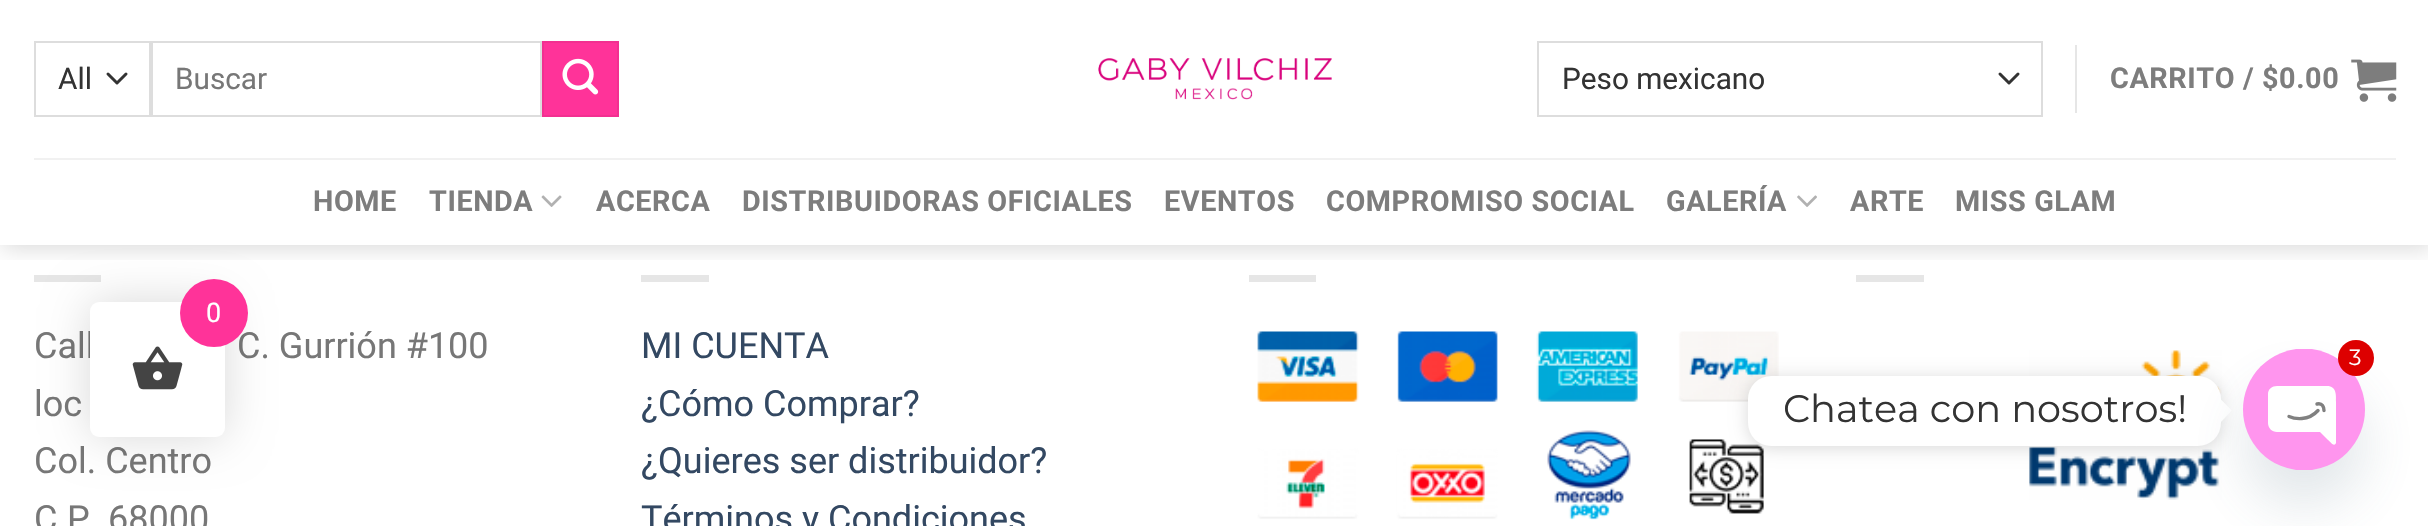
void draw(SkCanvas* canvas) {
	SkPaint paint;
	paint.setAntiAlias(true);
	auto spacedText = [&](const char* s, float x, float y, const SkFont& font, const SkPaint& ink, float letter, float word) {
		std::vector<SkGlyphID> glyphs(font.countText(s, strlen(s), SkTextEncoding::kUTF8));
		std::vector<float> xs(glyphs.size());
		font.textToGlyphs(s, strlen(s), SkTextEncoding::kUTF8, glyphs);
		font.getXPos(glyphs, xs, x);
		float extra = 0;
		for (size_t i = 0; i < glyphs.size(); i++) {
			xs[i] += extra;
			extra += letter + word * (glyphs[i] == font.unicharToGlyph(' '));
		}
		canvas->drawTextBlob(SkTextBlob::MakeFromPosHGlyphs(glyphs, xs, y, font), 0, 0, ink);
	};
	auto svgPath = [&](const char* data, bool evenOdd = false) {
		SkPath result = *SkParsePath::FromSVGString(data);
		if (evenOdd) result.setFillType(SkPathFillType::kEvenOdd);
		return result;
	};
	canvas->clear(0xffffffff);
	paint.setColor(0xffe6e6e6);
	canvas->drawRect(SkRect::MakeXYWH(34, 275, 67, 7), paint);
	canvas->drawRect(SkRect::MakeXYWH(641, 275, 68, 7), paint);
	canvas->drawRect(SkRect::MakeXYWH(1249, 275, 67, 7), paint);
	canvas->drawRect(SkRect::MakeXYWH(1856, 275, 68, 7), paint);
	canvas->save();
	canvas->clipRect(SkRect::MakeXYWH(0, 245, 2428, 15));
	paint.setColor(0x26000000);
	paint.setMaskFilter(SkMaskFilter::MakeBlur(kNormal_SkBlurStyle, 11));
	canvas->drawRect(SkRect::MakeXYWH(2, 2, 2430, 246), paint);
	paint.setMaskFilter(nullptr);
	canvas->restore();
	paint.setStroke(true);
	paint.setStrokeWidth(3);
	paint.setStrokeCap(SkPaint::kRound_Cap);
	paint.setStrokeJoin(SkPaint::kRound_Join);
	paint.setColor(0xff333333);
	canvas->drawPath(svgPath("M108 74L117 83L126 74"), paint);
	paint.setStrokeWidth(2);
	paint.setStrokeCap(SkPaint::kButt_Cap);
	paint.setStrokeJoin(SkPaint::kMiter_Join);
	paint.setColor(0xffdddddd);
	canvas->drawRect(SkRect::MakeXYWH(35, 42, 115, 74), paint);
	SkFont f1(fontMgr->matchFamilyStyle("Roboto", SkFontStyle::Normal()), 29.75);
	f1.setSubpixel(true);
	paint.setStroke(false);
	paint.setColor(0xff333333);
	canvas->drawString("All", 58, 89, f1, paint);
	paint.setStroke(true);
	paint.setColor(0xffdddddd);
	canvas->drawRect(SkRect::MakeXYWH(152, 42, 389, 74), paint);
	paint.setStroke(false);
	paint.setColor(0xff777777);
	canvas->drawString("Buscar", 175, 89, f1, paint);
	paint.setColor(0xffff3399);
	canvas->drawRect(SkRect::MakeXYWH(543, 42, 75, 74), paint);
	paint.setStroke(true);
	paint.setColor(0xfff23091);
	canvas->drawRect(SkRect::MakeXYWH(543, 42, 75, 74), paint);
	canvas->drawImageRect(SkImages::DeferredFromEncodedData(SkData::MakeFromFileName("img1.png")), SkRect::MakeXYWH(562, 58, 37, 37), SkSamplingOptions());
	canvas->drawImageRect(SkImages::DeferredFromEncodedData(SkData::MakeFromFileName("img2.png")), SkRect::MakeXYWH(1098, 58, 234, 42), SkSamplingOptions());
	paint.setStrokeWidth(3);
	paint.setStrokeCap(SkPaint::kRound_Cap);
	paint.setStrokeJoin(SkPaint::kRound_Join);
	paint.setColor(0xff333333);
	canvas->drawPath(svgPath("M2000 74L2009 83L2018 74"), paint);
	paint.setStrokeWidth(2);
	paint.setStrokeCap(SkPaint::kButt_Cap);
	paint.setStrokeJoin(SkPaint::kMiter_Join);
	paint.setColor(0xffdddddd);
	canvas->drawRect(SkRect::MakeXYWH(1538, 42, 504, 74), paint);
	paint.setStroke(false);
	paint.setColor(0xff333333);
	canvas->drawString("Peso mexicano", 1562, 89, f1, paint);
	paint.setColor(0xffe6e6e6);
	canvas->drawRect(SkRect::MakeXYWH(2075, 45, 2, 68), paint);
	SkFont f2(fontMgr->matchFamilyStyle("Roboto", SkFontStyle::Bold()), 28.75);
	f2.setSubpixel(true);
	paint.setColor(0xff7d7d7d);
	spacedText("CARRITO / $0.00", 2110, 88, f2, paint, 0.6, 0);
	canvas->drawImageRect(SkImages::DeferredFromEncodedData(SkData::MakeFromFileName("img3.png")), SkRect::MakeXYWH(2351, 59, 46, 43), SkSamplingOptions());
	paint.setColor(0xfff1f1f1);
	canvas->drawRect(SkRect::MakeXYWH(34, 158, 2362, 2), paint);
	paint.setColor(0xff7d7d7d);
	spacedText("HOME", 313, 211, f2, paint, 0.6, 0);
	spacedText("TIENDA", 429, 211, f2, paint, 0.6, 0);
	canvas->drawImageRect(SkImages::DeferredFromEncodedData(SkData::MakeFromFileName("img4.png")), SkRect::MakeXYWH(541, 195, 21, 12), SkSamplingOptions());
	spacedText("ACERCA", 596, 211, f2, paint, 0.6, 0);
	spacedText("DISTRIBUIDORAS OFICIALES", 742, 211, f2, paint, 0.6, 0);
	spacedText("EVENTOS", 1164, 211, f2, paint, 0.6, 0);
	spacedText("COMPROMISO SOCIAL", 1326, 211, f2, paint, 0.6, 0);
	spacedText("GALERÍA", 1666, 211, f2, paint, 0.6, 0);
	canvas->drawImageRect(SkImages::DeferredFromEncodedData(SkData::MakeFromFileName("img5.png")), SkRect::MakeXYWH(1797, 195, 20, 12), SkSamplingOptions());
	spacedText("ARTE", 1850, 211, f2, paint, 0.6, 0);
	spacedText("MISS GLAM", 1955, 211, f2, paint, 0.6, 0);
	SkFont f3(fontMgr->matchFamilyStyle("Roboto", SkFontStyle::Normal()), 36);
	f3.setSubpixel(true);
	paint.setColor(0xff777777);
	canvas->drawString("Call", 34, 358, f3, paint);
	canvas->drawString("C. Gurrión #100", 237, 358, f3, paint);
	canvas->drawString("loc", 34, 416, f3, paint);
	canvas->drawString("Col. Centro", 34, 473, f3, paint);
	canvas->drawString("C.P. 68000", 34, 531, f3, paint);
	paint.setColor(0xff334862);
	canvas->drawString("MI CUENTA", 641, 358, f3, paint);
	canvas->drawString("¿Cómo Comprar?", 641, 416, f3, paint);
	canvas->drawString("¿Quieres ser distribuidor?", 641, 473, f3, paint);
	canvas->drawString("Términos y Condiciones", 641, 531, f3, paint);
	canvas->drawImageRect(SkImages::DeferredFromEncodedData(SkData::MakeFromFileName("img6.png")), SkRect::MakeXYWH(1257, 331, 522, 189), SkSamplingOptions());
	canvas->drawImageRect(SkImages::DeferredFromEncodedData(SkData::MakeFromFileName("img7.png")), SkRect::MakeXYWH(2029, 350, 193, 150), SkSamplingOptions());
	paint.setColor(0x26000000);
	paint.setMaskFilter(SkMaskFilter::MakeBlur(kNormal_SkBlurStyle, 22.5));
	canvas->drawRoundRect(SkRect::MakeXYWH(90, 302, 135, 135), 9, 9, paint);
	paint.setMaskFilter(nullptr);
	paint.setColor(0xffffffff);
	canvas->drawRoundRect(SkRect::MakeXYWH(90, 302, 135, 135), 9, 9, paint);
	canvas->drawImageRect(SkImages::DeferredFromEncodedData(SkData::MakeFromFileName("img8.png")), SkRect::MakeXYWH(132, 346, 51, 44), SkSamplingOptions());
	paint.setColor(0xffff3399);
	canvas->drawCircle(214, 313, 34, paint);
	SkFont f4(fontMgr->matchFamilyStyle("Roboto", SkFontStyle::Normal()), 27);
	f4.setSubpixel(true);
	paint.setColor(0xffffffff);
	canvas->drawString("0", 206, 322, f4, paint);
	paint.setColor(0x26000000);
	paint.setMaskFilter(SkMaskFilter::MakeBlur(kNormal_SkBlurStyle, 8.5));
	canvas->drawRoundRect(SkRect::MakeXYWH(1748, 378, 473, 70), 23, 23, paint);
	paint.setMaskFilter(nullptr);
	paint.setColor(0xffffffff);
	canvas->drawRoundRect(SkRect::MakeXYWH(1748, 376, 473, 70), 23, 23, paint);
	canvas->drawPath(svgPath("M2221 422V399.5L2232 410.5Z"), paint);
	paint.setColor(0x2949687e);
	paint.setMaskFilter(SkMaskFilter::MakeBlur(kNormal_SkBlurStyle, 27));
	canvas->drawRoundRect(SkRect::MakeXYWH(2243, 385, 122, 121), 60.5, 60.5, paint);
	paint.setMaskFilter(nullptr);
	canvas->save();
	canvas->clipRect(SkRect::MakeXYWH(2243, 349, 122, 121));
	paint.setColor(0xffff95ee);
	canvas->drawCircle(2304, 409.5, 61, paint);
	canvas->restore();
	paint.setColor(0xffffffff);
	canvas->drawPath(svgPath("M2327 386H2277C2272 386 2268 389 2268 394V423C2268 428 2272 432 2277 432H2320L2328 440C2329 440 2334 448 2336 443V402C2336 396 2337 386 2327 386Z"), paint);
	paint.setStroke(true);
	paint.setStrokeWidth(3.4);
	paint.setStrokeCap(SkPaint::kRound_Cap);
	paint.setStrokeJoin(SkPaint::kRound_Join);
	paint.setColor(0xff808080);
	canvas->drawPath(svgPath("M2289 416.5C2294.5 419 2308 421.5 2318 410.5M2324 410.5C2324 407.5 2322.5 402.5 2317 404"), paint);
	paint.setStroke(false);
	paint.setColor(0xffdd0000);
	canvas->drawCircle(2356, 358, 18, paint);
	SkFont f5(fontMgr->matchFamilyStyle("Montserrat", SkFontStyle(100, SkFontStyle::kNormal_Width, SkFontStyle::kUpright_Slant)), 22);
	f5.setSubpixel(true);
	paint.setColor(0xffffffff);
	canvas->drawString("3", 2349, 365, f5, paint);
	SkFont f6(fontMgr->matchFamilyStyle("Montserrat", SkFontStyle(100, SkFontStyle::kNormal_Width, SkFontStyle::kUpright_Slant)), 38.25);
	f6.setSubpixel(true);
	paint.setColor(0xff333333);
	canvas->drawString("Chatea con nosotros!", 1783, 422, f6, paint);
}
